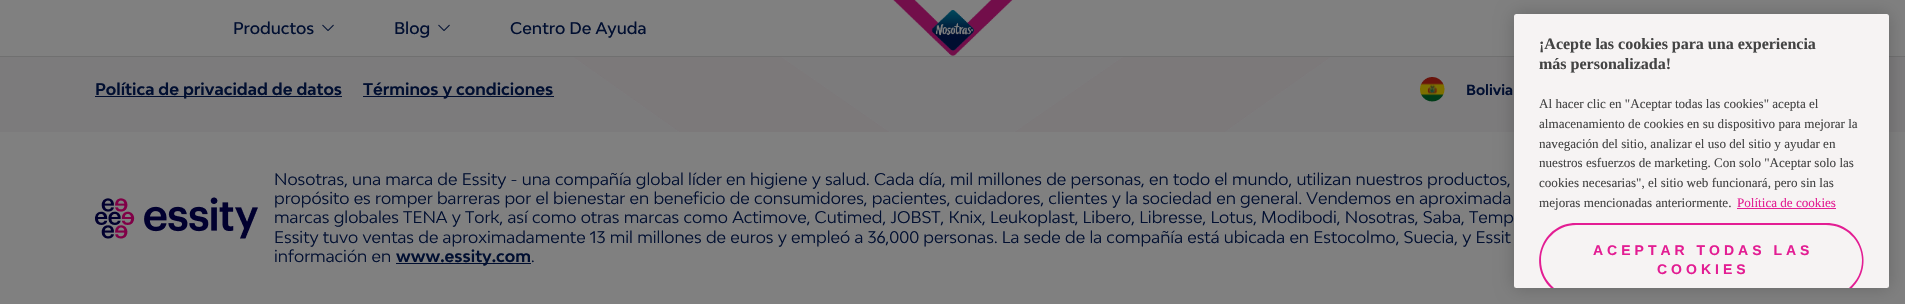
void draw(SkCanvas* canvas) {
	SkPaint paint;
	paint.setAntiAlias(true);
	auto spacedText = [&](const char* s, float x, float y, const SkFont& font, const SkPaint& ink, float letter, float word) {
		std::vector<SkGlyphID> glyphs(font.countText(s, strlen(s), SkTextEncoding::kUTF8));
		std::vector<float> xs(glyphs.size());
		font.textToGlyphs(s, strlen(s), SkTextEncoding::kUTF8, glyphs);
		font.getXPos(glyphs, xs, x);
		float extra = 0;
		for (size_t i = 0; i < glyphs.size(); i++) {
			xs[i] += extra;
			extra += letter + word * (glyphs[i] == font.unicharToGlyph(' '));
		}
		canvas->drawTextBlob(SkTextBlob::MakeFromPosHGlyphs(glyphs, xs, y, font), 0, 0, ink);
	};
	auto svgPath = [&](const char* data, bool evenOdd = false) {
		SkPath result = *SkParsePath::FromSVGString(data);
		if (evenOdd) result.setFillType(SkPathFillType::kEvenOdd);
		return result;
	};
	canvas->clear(0xff7c7b7c);
	paint.setColor(0xff808080);
	canvas->drawRect(SkRect::MakeXYWH(0, 0, 1905, 56), paint);
	paint.setColor(0xff707070);
	canvas->drawRect(SkRect::MakeXYWH(0, 56, 1905, 1), paint);
	SkFont f1(fontMgr->matchFamilyStyle("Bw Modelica", SkFontStyle(500, SkFontStyle::kNormal_Width, SkFontStyle::kUpright_Slant)), 16);
	f1.setSubpixel(true);
	paint.setColor(0xff010f31);
	canvas->drawString("Productos", 233, 34, f1, paint);
	canvas->drawImageRect(SkImages::DeferredFromEncodedData(SkData::MakeFromFileName("img1.png")), SkRect::MakeXYWH(322, 24, 12, 7), SkSamplingOptions());
	canvas->drawString("Blog", 394, 34, f1, paint);
	canvas->drawImageRect(SkImages::DeferredFromEncodedData(SkData::MakeFromFileName("img1.png")), SkRect::MakeXYWH(438, 24, 12, 7), SkSamplingOptions());
	canvas->drawString("Centro De Ayuda", 510, 34, f1, paint);
	canvas->drawImageRect(SkImages::DeferredFromEncodedData(SkData::MakeFromFileName("img2.png")), SkRect::MakeXYWH(893, 0, 120, 56), SkSamplingOptions());
	canvas->drawImageRect(SkImages::DeferredFromEncodedData(SkData::MakeFromFileName("img3.png")), SkRect::MakeXYWH(574, 57, 756, 75), SkSamplingOptions());
	canvas->drawRect(SkRect::MakeXYWH(95, 96, 247, 1), paint);
	SkFont f2(fontMgr->matchFamilyStyle("Bw Modelica", SkFontStyle::Bold()), 16);
	f2.setSubpixel(true);
	canvas->drawString("Política de privacidad de datos", 95, 95, f2, paint);
	canvas->drawRect(SkRect::MakeXYWH(363, 96, 191, 1), paint);
	canvas->drawString("Términos y condiciones", 363, 95, f2, paint);
	canvas->drawImageRect(SkImages::DeferredFromEncodedData(SkData::MakeFromFileName("img4.png")), SkRect::MakeXYWH(1420, 77, 25, 25), SkSamplingOptions());
	SkFont f3(fontMgr->matchFamilyStyle("Bw Modelica", SkFontStyle::Bold()), 14);
	f3.setSubpixel(true);
	canvas->drawString("Bolivia", 1466, 95, f3, paint);
	paint.setColor(0xff808080);
	canvas->drawRect(SkRect::MakeXYWH(0, 132, 1905, 172), paint);
	canvas->drawImageRect(SkImages::DeferredFromEncodedData(SkData::MakeFromFileName("img5.png")), SkRect::MakeXYWH(95, 197, 163, 42), SkSamplingOptions());
	SkFont f4(fontMgr->matchFamilyStyle("Bw Modelica", SkFontStyle::Normal()), 16);
	f4.setSubpixel(true);
	paint.setColor(0xff010f31);
	canvas->drawString("Nosotras, una marca de Essity - una compañía global líder en higiene y salud. Cada día, mil millones de personas, en todo el mundo, utilizan nuestros productos,", 274, 185, f4, paint);
	canvas->drawString("propósito es romper barreras por el bienestar en beneficio de consumidores, pacientes, cuidadores, clientes y la sociedad en general. Vendemos en aproximada", 274, 204, f4, paint);
	canvas->drawString("marcas globales TENA y Tork, así como otras marcas como Actimove, Cutimed, JOBST, Knix, Leukoplast, Libero, Libresse, Lotus, Modibodi, Nosotras, Saba, Temp", 274, 223, f4, paint);
	canvas->drawString("Essity tuvo ventas de aproximadamente 13 mil millones de euros y empleó a 36,000 personas. La sede de la compañía está ubicada en Estocolmo, Suecia, y Essit", 274, 243, f4, paint);
	canvas->drawString("información en", 274, 262, f4, paint);
	canvas->drawRect(SkRect::MakeXYWH(396, 263, 135, 1), paint);
	canvas->drawString("www.essity.com", 396, 262, f2, paint);
	canvas->drawString(".", 531, 262, f4, paint);
	paint.setColor(0x33000000);
	paint.setMaskFilter(SkMaskFilter::MakeBlur(kNormal_SkBlurStyle, 9));
	canvas->drawRoundRect(SkRect::MakeXYWH(1514, 14, 375, 274), 2.5, 2.5, paint);
	paint.setMaskFilter(nullptr);
	paint.setColor(0xfff6f3f3);
	canvas->drawRoundRect(SkRect::MakeXYWH(1514, 14, 375, 274), 2.5, 2.5, paint);
	SkFont f5(fontMgr->matchFamilyStyle("Liberation Serif", SkFontStyle::Bold()), 16);
	f5.setSubpixel(true);
	paint.setColor(0xff444444);
	canvas->drawString("¡Acepte las cookies para una experiencia", 1539, 49, f5, paint);
	canvas->drawString("más personalizada!", 1539, 69, f5, paint);
	SkFont f6(fontMgr->matchFamilyStyle("Liberation Serif", SkFontStyle::Normal()), 13.1);
	f6.setSubpixel(true);
	canvas->drawString("Al hacer clic en \"Aceptar todas las cookies\" acepta el", 1539, 108, f6, paint);
	canvas->drawString("almacenamiento de cookies en su dispositivo para mejorar la", 1539, 128, f6, paint);
	canvas->drawString("navegación del sitio, analizar el uso del sitio y ayudar en", 1539, 148, f6, paint);
	canvas->drawString("nuestros esfuerzos de marketing. Con solo \"Aceptar solo las", 1539, 167, f6, paint);
	canvas->drawString("cookies necesarias\", el sitio web funcionará, pero sin las", 1539, 187, f6, paint);
	canvas->drawString("mejoras mencionadas anteriormente.", 1539, 207, f6, paint);
	paint.setColor(0xffe31d93);
	canvas->drawString("Política de cookies", 1737, 207, f6, paint);
	canvas->drawRect(SkRect::MakeXYWH(1737, 208, 99, 1), paint);
	canvas->drawPath(svgPath("M1576 223C1542 223 1527 265 1551 288H1554C1546 281 1541 272 1541 260C1541 241 1557 225 1576 225H1826C1846 225 1862 241 1862 260C1862 272 1857 281 1849 288H1852C1876 265 1861 223 1826 223Z"), paint);
	SkFont f7(fontMgr->matchFamilyStyle("Liberation Sans", SkFontStyle::Bold()), 14);
	f7.setSubpixel(true);
	spacedText("ACEPTAR TODAS LAS", 1593, 255, f7, paint, 4, 0);
	spacedText("COOKIES", 1657, 274, f7, paint, 4, 0);
}
